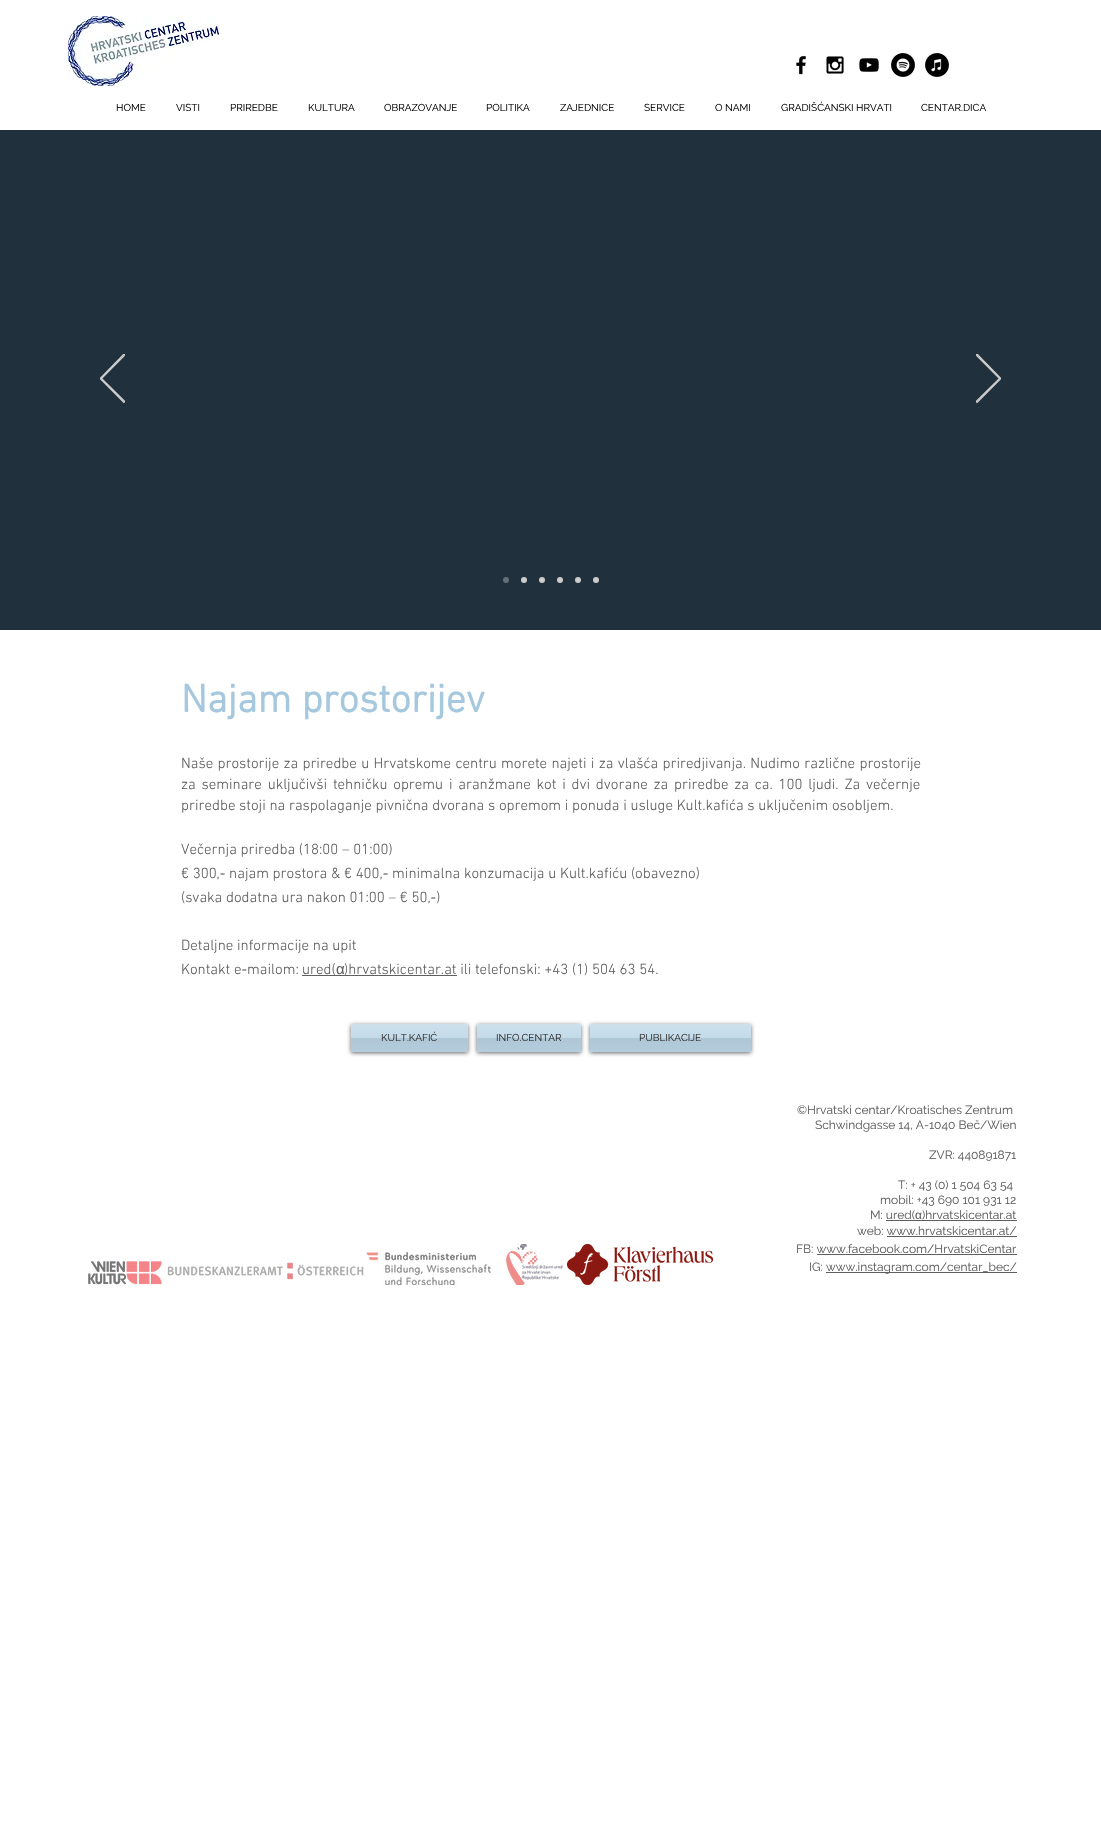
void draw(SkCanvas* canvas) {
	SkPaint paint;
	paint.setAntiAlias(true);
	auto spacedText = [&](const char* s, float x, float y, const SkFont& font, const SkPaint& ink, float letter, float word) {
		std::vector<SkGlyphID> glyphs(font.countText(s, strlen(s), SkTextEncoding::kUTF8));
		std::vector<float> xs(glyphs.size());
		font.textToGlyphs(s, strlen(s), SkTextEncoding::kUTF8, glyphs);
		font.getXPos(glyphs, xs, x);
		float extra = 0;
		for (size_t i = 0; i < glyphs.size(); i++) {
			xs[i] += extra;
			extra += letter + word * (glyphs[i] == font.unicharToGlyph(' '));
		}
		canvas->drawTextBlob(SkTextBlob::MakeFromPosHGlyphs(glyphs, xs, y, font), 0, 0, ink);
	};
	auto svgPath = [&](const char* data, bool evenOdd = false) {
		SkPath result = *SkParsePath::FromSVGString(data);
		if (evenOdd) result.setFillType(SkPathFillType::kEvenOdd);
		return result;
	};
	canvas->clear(0xffffffff);
	canvas->drawImageRect(SkImages::DeferredFromEncodedData(SkData::MakeFromFileName("img1.png")), SkRect::MakeXYWH(68, 16, 151, 70), SkSamplingOptions());
	canvas->drawImageRect(SkImages::DeferredFromEncodedData(SkData::MakeFromFileName("img2.png")), SkRect::MakeXYWH(796, 55, 10, 20), SkSamplingOptions());
	canvas->drawImageRect(SkImages::DeferredFromEncodedData(SkData::MakeFromFileName("img3.png")), SkRect::MakeXYWH(826, 56, 18, 18), SkSamplingOptions());
	canvas->drawImageRect(SkImages::DeferredFromEncodedData(SkData::MakeFromFileName("img4.png")), SkRect::MakeXYWH(859, 58, 20, 14), SkSamplingOptions());
	canvas->drawImageRect(SkImages::DeferredFromEncodedData(SkData::MakeFromFileName("img5.png")), SkRect::MakeXYWH(891, 53, 24, 24), SkSamplingOptions());
	canvas->drawImageRect(SkImages::DeferredFromEncodedData(SkData::MakeFromFileName("img6.png")), SkRect::MakeXYWH(925, 53, 24, 24), SkSamplingOptions());
	SkFont f1(fontMgr->matchFamilyStyle("Raleway", SkFontStyle::Normal()), 10);
	f1.setSubpixel(true);
	paint.setColor(0xff000000);
	canvas->drawString("HOME", 116, 111, f1, paint);
	canvas->drawString("VISTI", 176, 111, f1, paint);
	canvas->drawString("PRIREDBE", 230, 111, f1, paint);
	canvas->drawString("KULTURA", 308, 111, f1, paint);
	canvas->drawString("OBRAZOVANJE", 384, 111, f1, paint);
	canvas->drawString("POLITIKA", 486, 111, f1, paint);
	canvas->drawString("ZAJEDNICE", 560, 111, f1, paint);
	canvas->drawString("SERVICE", 644, 111, f1, paint);
	canvas->drawString("O NAMI", 715, 111, f1, paint);
	canvas->drawString("GRADIŠĆANSKI HRVATI", 781, 111, f1, paint);
	canvas->drawString("CENTAR.DICA", 921, 111, f1, paint);
	paint.setColor(0xff20303c);
	canvas->drawRect(SkRect::MakeXYWH(0, 130, 1101, 500), paint);
	canvas->save();
	canvas->clipRect(SkRect::MakeXYWH(100, 354, 25, 49));
	paint.setStroke(true);
	paint.setStrokeWidth(1.2);
	paint.setColor(0xffcccccc);
	canvas->drawPath(svgPath("M124 402.5L100 378.5L124 354L125 355L101.5 378.5L125 401.5Z"), paint);
	canvas->restore();
	canvas->save();
	canvas->clipRect(SkRect::MakeXYWH(976, 354, 25, 49));
	canvas->drawPath(svgPath("M977 402.5L1001 378.5L977 354L976 355L999.5 378.5L976 401.5Z"), paint);
	canvas->restore();
	paint.setStroke(false);
	paint.setColor(0xff636e77);
	canvas->drawCircle(506, 580, 3, paint);
	paint.setColor(0xffcccccc);
	canvas->drawCircle(524, 580, 3, paint);
	canvas->drawCircle(542, 580, 3, paint);
	canvas->drawCircle(560, 580, 3, paint);
	canvas->drawCircle(578, 580, 3, paint);
	canvas->drawCircle(596, 580, 3, paint);
	SkFont f2(fontMgr->matchFamilyStyle("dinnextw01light", SkFontStyle::Bold()), 40);
	f2.setSubpixel(true);
	paint.setColor(0xffa5c8de);
	canvas->drawString("Najam prostorijev", 181, 712, f2, paint);
	SkFont f3(fontMgr->matchFamilyStyle("dinnextw01light", SkFontStyle(300, SkFontStyle::kNormal_Width, SkFontStyle::kUpright_Slant)), 15);
	f3.setSubpixel(true);
	paint.setColor(0xff605e5e);
	spacedText("Naše prostorije za priredbe u Hrvatskome centru morete najeti i za vlašća priredjivanja. Nudimo različne prostorije", 181, 768, f3, paint, 0, 0.6);
	spacedText("za seminare uključivši tehničku opremu i aranžmane kot i dvi dvorane za priredbe za ca. 100 ljudi. Za večernje", 181, 789, f3, paint, 0, 2.1);
	canvas->drawString("priredbe stoji na raspolaganje pivnična dvorana s opremom i ponuda i usluge Kult.kafića s uključenim osobljem.", 181, 810, f3, paint);
	canvas->drawString("Večernja priredba (18:00 – 01:00)", 181, 854, f3, paint);
	canvas->drawString("€ 300,- najam prostora & € 400,- minimalna konzumacija u Kult.kafiću (obavezno)", 181, 878, f3, paint);
	canvas->drawString("(svaka dodatna ura nakon 01:00 – € 50,-)", 181, 902, f3, paint);
	canvas->drawString("Detaljne informacije na upit", 181, 950, f3, paint);
	canvas->drawString("Kontakt e-mailom:", 181, 974, f3, paint);
	canvas->drawRect(SkRect::MakeXYWH(302, 975, 155, 1), paint);
	canvas->drawString("ured(", 302, 974, f3, paint);
	SkFont f4(fontMgr->matchFamilyStyle("Liberation Sans", SkFontStyle::Normal()), 15);
	f4.setSubpixel(true);
	canvas->drawString("α", 336, 974, f4, paint);
	canvas->drawString(")hrvatskicentar.at ili telefonski: +43 (1) 504 63 54.", 344, 974, f3, paint);
	canvas->save();
	canvas->clipPath(svgPath("M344 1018H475V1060H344ZM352 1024H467C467.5 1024 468 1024.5 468 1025V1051C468 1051.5 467.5 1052 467 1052H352C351.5 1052 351 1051.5 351 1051V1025C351 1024.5 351.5 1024 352 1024Z", true), true);
	paint.setColor(0x99000000);
	paint.setMaskFilter(SkMaskFilter::MakeBlur(kNormal_SkBlurStyle, 2));
	canvas->drawRoundRect(SkRect::MakeXYWH(351, 1025, 117, 28), 1, 1, paint);
	paint.setMaskFilter(nullptr);
	canvas->restore();
	paint.setColor(0xbda5c8de);
	canvas->drawRoundRect(SkRect::MakeXYWH(351, 1024, 117, 28), 1, 1, paint);
	canvas->drawImageRect(SkImages::DeferredFromEncodedData(SkData::MakeFromFileName("img7.png")), SkRect::MakeXYWH(351, 1024, 117, 28), SkSamplingOptions());
	paint.setColor(0xff2f2e2e);
	canvas->drawString("KULT.KAFIĆ", 381, 1041, f1, paint);
	canvas->save();
	canvas->clipPath(svgPath("M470 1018H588V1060H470ZM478 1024H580C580.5 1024 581 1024.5 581 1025V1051C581 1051.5 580.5 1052 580 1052H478C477.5 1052 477 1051.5 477 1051V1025C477 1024.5 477.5 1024 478 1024Z", true), true);
	paint.setColor(0x99000000);
	paint.setMaskFilter(SkMaskFilter::MakeBlur(kNormal_SkBlurStyle, 2));
	canvas->drawRoundRect(SkRect::MakeXYWH(477, 1025, 104, 28), 1, 1, paint);
	paint.setMaskFilter(nullptr);
	canvas->restore();
	paint.setColor(0xbda5c8de);
	canvas->drawRoundRect(SkRect::MakeXYWH(477, 1024, 104, 28), 1, 1, paint);
	canvas->drawImageRect(SkImages::DeferredFromEncodedData(SkData::MakeFromFileName("img8.png")), SkRect::MakeXYWH(477, 1024, 104, 28), SkSamplingOptions());
	paint.setColor(0xff2f2e2e);
	canvas->drawString("INFO.CENTAR", 496, 1041, f1, paint);
	canvas->save();
	canvas->clipPath(svgPath("M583 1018H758V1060H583ZM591 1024H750C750.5 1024 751 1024.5 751 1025V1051C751 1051.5 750.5 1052 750 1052H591C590.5 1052 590 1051.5 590 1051V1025C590 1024.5 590.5 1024 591 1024Z", true), true);
	paint.setColor(0x99000000);
	paint.setMaskFilter(SkMaskFilter::MakeBlur(kNormal_SkBlurStyle, 2));
	canvas->drawRoundRect(SkRect::MakeXYWH(590, 1025, 161, 28), 1, 1, paint);
	paint.setMaskFilter(nullptr);
	canvas->restore();
	paint.setColor(0xbda5c8de);
	canvas->drawRoundRect(SkRect::MakeXYWH(590, 1024, 161, 28), 1, 1, paint);
	canvas->drawImageRect(SkImages::DeferredFromEncodedData(SkData::MakeFromFileName("img9.png")), SkRect::MakeXYWH(590, 1024, 161, 28), SkSamplingOptions());
	paint.setColor(0xff2f2e2e);
	canvas->drawString("PUBLIKACIJE", 639, 1041, f1, paint);
	canvas->drawImageRect(SkImages::DeferredFromEncodedData(SkData::MakeFromFileName("img10.png")), SkRect::MakeXYWH(88, 1244, 475, 41), SkSamplingOptions());
	canvas->drawImageRect(SkImages::DeferredFromEncodedData(SkData::MakeFromFileName("img11.png")), SkRect::MakeXYWH(567, 1244, 146, 41), SkSamplingOptions());
	SkFont f5(fontMgr->matchFamilyStyle("Raleway", SkFontStyle::Normal()), 12);
	f5.setSubpixel(true);
	paint.setColor(0xff605e5e);
	canvas->drawString("©Hrvatski centar/Kroatisches Zentrum", 797, 1114, f5, paint);
	canvas->drawString("Schwindgasse 14, A-1040 Beč/Wien", 815, 1129, f5, paint);
	canvas->drawString("ZVR: 440891871", 929, 1159, f5, paint);
	canvas->drawString("T: + 43 (0) 1 504 63 54", 898, 1189, f5, paint);
	canvas->drawString("mobil: +43 690 101 931 12", 880, 1204, f5, paint);
	canvas->drawString("M: ured(", 870, 1219, f5, paint);
	SkFont f6(fontMgr->matchFamilyStyle("Liberation Sans", SkFontStyle::Normal()), 12);
	f6.setSubpixel(true);
	canvas->drawString("α", 915, 1219, f6, paint);
	canvas->drawRect(SkRect::MakeXYWH(886, 1220, 131, 1), paint);
	canvas->drawString(")hrvatskicentar.at", 922, 1219, f5, paint);
	SkFont f7(fontMgr->matchFamilyStyle("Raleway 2", SkFontStyle::Normal()), 12);
	f7.setSubpixel(true);
	canvas->drawString("web: www.hrvatskicentar.at/", 857, 1235, f7, paint);
	canvas->drawRect(SkRect::MakeXYWH(887, 1236, 130, 1), paint);
	canvas->drawString("FB: www.facebook.com/HrvatskiCentar", 796, 1253, f7, paint);
	canvas->drawRect(SkRect::MakeXYWH(817, 1254, 200, 1), paint);
	canvas->drawString("IG:", 809, 1271, f7, paint);
	canvas->drawRect(SkRect::MakeXYWH(826, 1272, 191, 1), paint);
	canvas->drawString("www.instagram.com/centar_bec/", 826, 1271, f7, paint);
}
